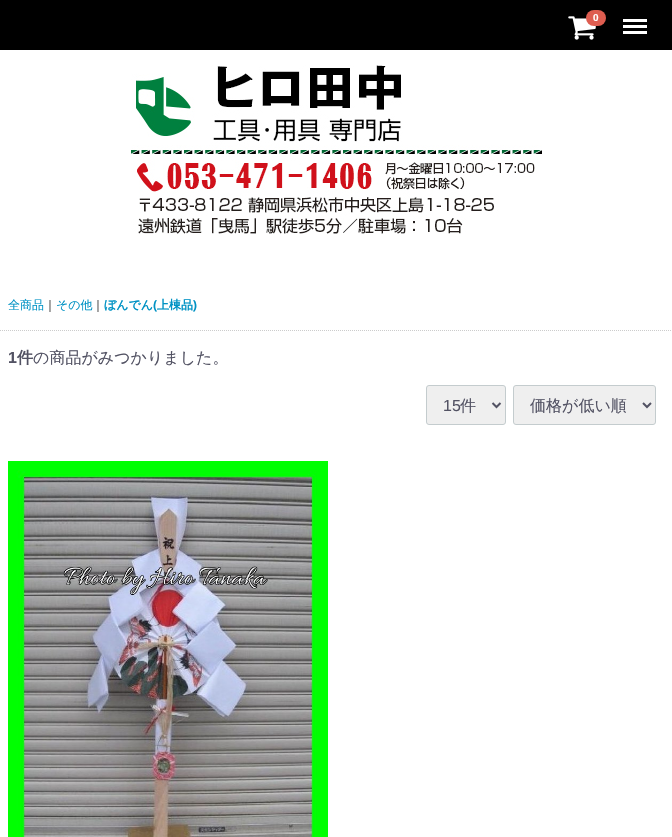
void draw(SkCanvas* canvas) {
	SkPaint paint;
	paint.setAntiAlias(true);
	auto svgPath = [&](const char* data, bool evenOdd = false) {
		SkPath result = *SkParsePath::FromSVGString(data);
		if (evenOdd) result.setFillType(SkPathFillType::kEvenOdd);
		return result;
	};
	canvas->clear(0xffffffff);
	paint.setColor(0xff000000);
	canvas->drawRect(SkRect::MakeXYWH(0, 0, 672, 50), paint);
	canvas->drawImageRect(SkImages::DeferredFromEncodedData(SkData::MakeFromFileName("img1.png")), SkRect::MakeXYWH(568, 16, 28, 24), SkSamplingOptions());
	paint.setColor(0xffde5d50);
	canvas->drawRoundRect(SkRect::MakeXYWH(586, 10, 20, 16), 8, 8, paint);
	SkFont f1(fontMgr->matchFamilyStyle("Liberation Sans", SkFontStyle::Bold()), 10);
	f1.setSubpixel(true);
	paint.setColor(0xffffffff);
	canvas->drawString("0", 593, 21, f1, paint);
	canvas->drawRect(SkRect::MakeXYWH(623, 25, 24, 3), paint);
	canvas->drawRect(SkRect::MakeXYWH(623, 19, 24, 3), paint);
	canvas->drawRect(SkRect::MakeXYWH(623, 31, 24, 3), paint);
	canvas->drawImageRect(SkImages::DeferredFromEncodedData(SkData::MakeFromFileName("img2.png")), SkRect::MakeXYWH(131, 65, 411, 169), SkSamplingOptions());
	paint.setStroke(true);
	paint.setStrokeWidth(1);
	paint.setColor(0xffcccccc);
	paint.setPathEffect(SkDashPathEffect::Make({{1, 1}}, 0));
	canvas->drawPath(svgPath("M0 330.5H672"), paint);
	paint.setPathEffect(nullptr);
	SkFont f2(fontMgr->matchFamilyStyle("WenQuanYi Zen Hei", SkFontStyle(500, SkFontStyle::kNormal_Width, SkFontStyle::kUpright_Slant)), 12);
	f2.setSubpixel(true);
	paint.setStroke(false);
	paint.setColor(0xff0092c4);
	canvas->drawString("全商品", 8, 309, f2, paint);
	paint.setColor(0xff333333);
	canvas->drawString("｜", 44, 309, f2, paint);
	paint.setColor(0xff0092c4);
	canvas->drawString("その他", 56, 309, f2, paint);
	paint.setColor(0xff333333);
	canvas->drawString("｜", 92, 309, f2, paint);
	SkFont f3(fontMgr->matchFamilyStyle("WenQuanYi Zen Hei", SkFontStyle::Bold()), 12);
	f3.setSubpixel(true);
	paint.setColor(0xff0092c4);
	canvas->drawString("ぼんでん", 104, 309, f3, paint);
	SkFont f4(fontMgr->matchFamilyStyle("Liberation Sans", SkFontStyle::Bold()), 12);
	f4.setSubpixel(true);
	canvas->drawString("(", 153, 309, f4, paint);
	canvas->drawString("上棟品", 157, 309, f3, paint);
	canvas->drawString(")", 193, 309, f4, paint);
	SkFont f5(fontMgr->matchFamilyStyle("Liberation Sans", SkFontStyle::Bold()), 16);
	f5.setSubpixel(true);
	paint.setColor(0xff525263);
	canvas->drawString("1", 8, 363, f5, paint);
	SkFont f6(fontMgr->matchFamilyStyle("WenQuanYi Zen Hei", SkFontStyle::Bold()), 16);
	f6.setSubpixel(true);
	canvas->drawString("件", 17, 363, f6, paint);
	SkFont f7(fontMgr->matchFamilyStyle("WenQuanYi Zen Hei", SkFontStyle(500, SkFontStyle::kNormal_Width, SkFontStyle::kUpright_Slant)), 16);
	f7.setSubpixel(true);
	canvas->drawString("の商品がみつかりました。", 33, 363, f7, paint);
	paint.setColor(0xffefefef);
	canvas->drawRoundRect(SkRect::MakeXYWH(426.5, 385.5, 79, 39), 2.5, 2.5, paint);
	paint.setStroke(true);
	paint.setColor(0xffc4ccce);
	canvas->drawRoundRect(SkRect::MakeXYWH(426.5, 385.5, 79, 39), 2.5, 2.5, paint);
	paint.setStrokeWidth(2);
	paint.setColor(0xff525263);
	canvas->drawPath(svgPath("M492.5 403L496.5 407L500.5 403"), paint);
	SkFont f8(fontMgr->matchFamilyStyle("Liberation Sans", SkFontStyle::Normal()), 16);
	f8.setSubpixel(true);
	paint.setStroke(false);
	canvas->drawString("15", 443, 411, f8, paint);
	canvas->drawString("件", 460, 411, f7, paint);
	paint.setColor(0xffefefef);
	canvas->drawRoundRect(SkRect::MakeXYWH(513.5, 385.5, 142, 39), 2.5, 2.5, paint);
	paint.setStroke(true);
	paint.setStrokeWidth(1);
	paint.setColor(0xffc4ccce);
	canvas->drawRoundRect(SkRect::MakeXYWH(513.5, 385.5, 142, 39), 2.5, 2.5, paint);
	paint.setStrokeWidth(2);
	paint.setColor(0xff525263);
	canvas->drawPath(svgPath("M643 403L647 407L651 403"), paint);
	paint.setStroke(false);
	canvas->drawString("価格が低い順", 530, 411, f7, paint);
	canvas->drawImageRect(SkImages::DeferredFromEncodedData(SkData::MakeFromFileName("img3.png")), SkRect::MakeXYWH(8, 461, 320, 376), SkSamplingOptions());
}
